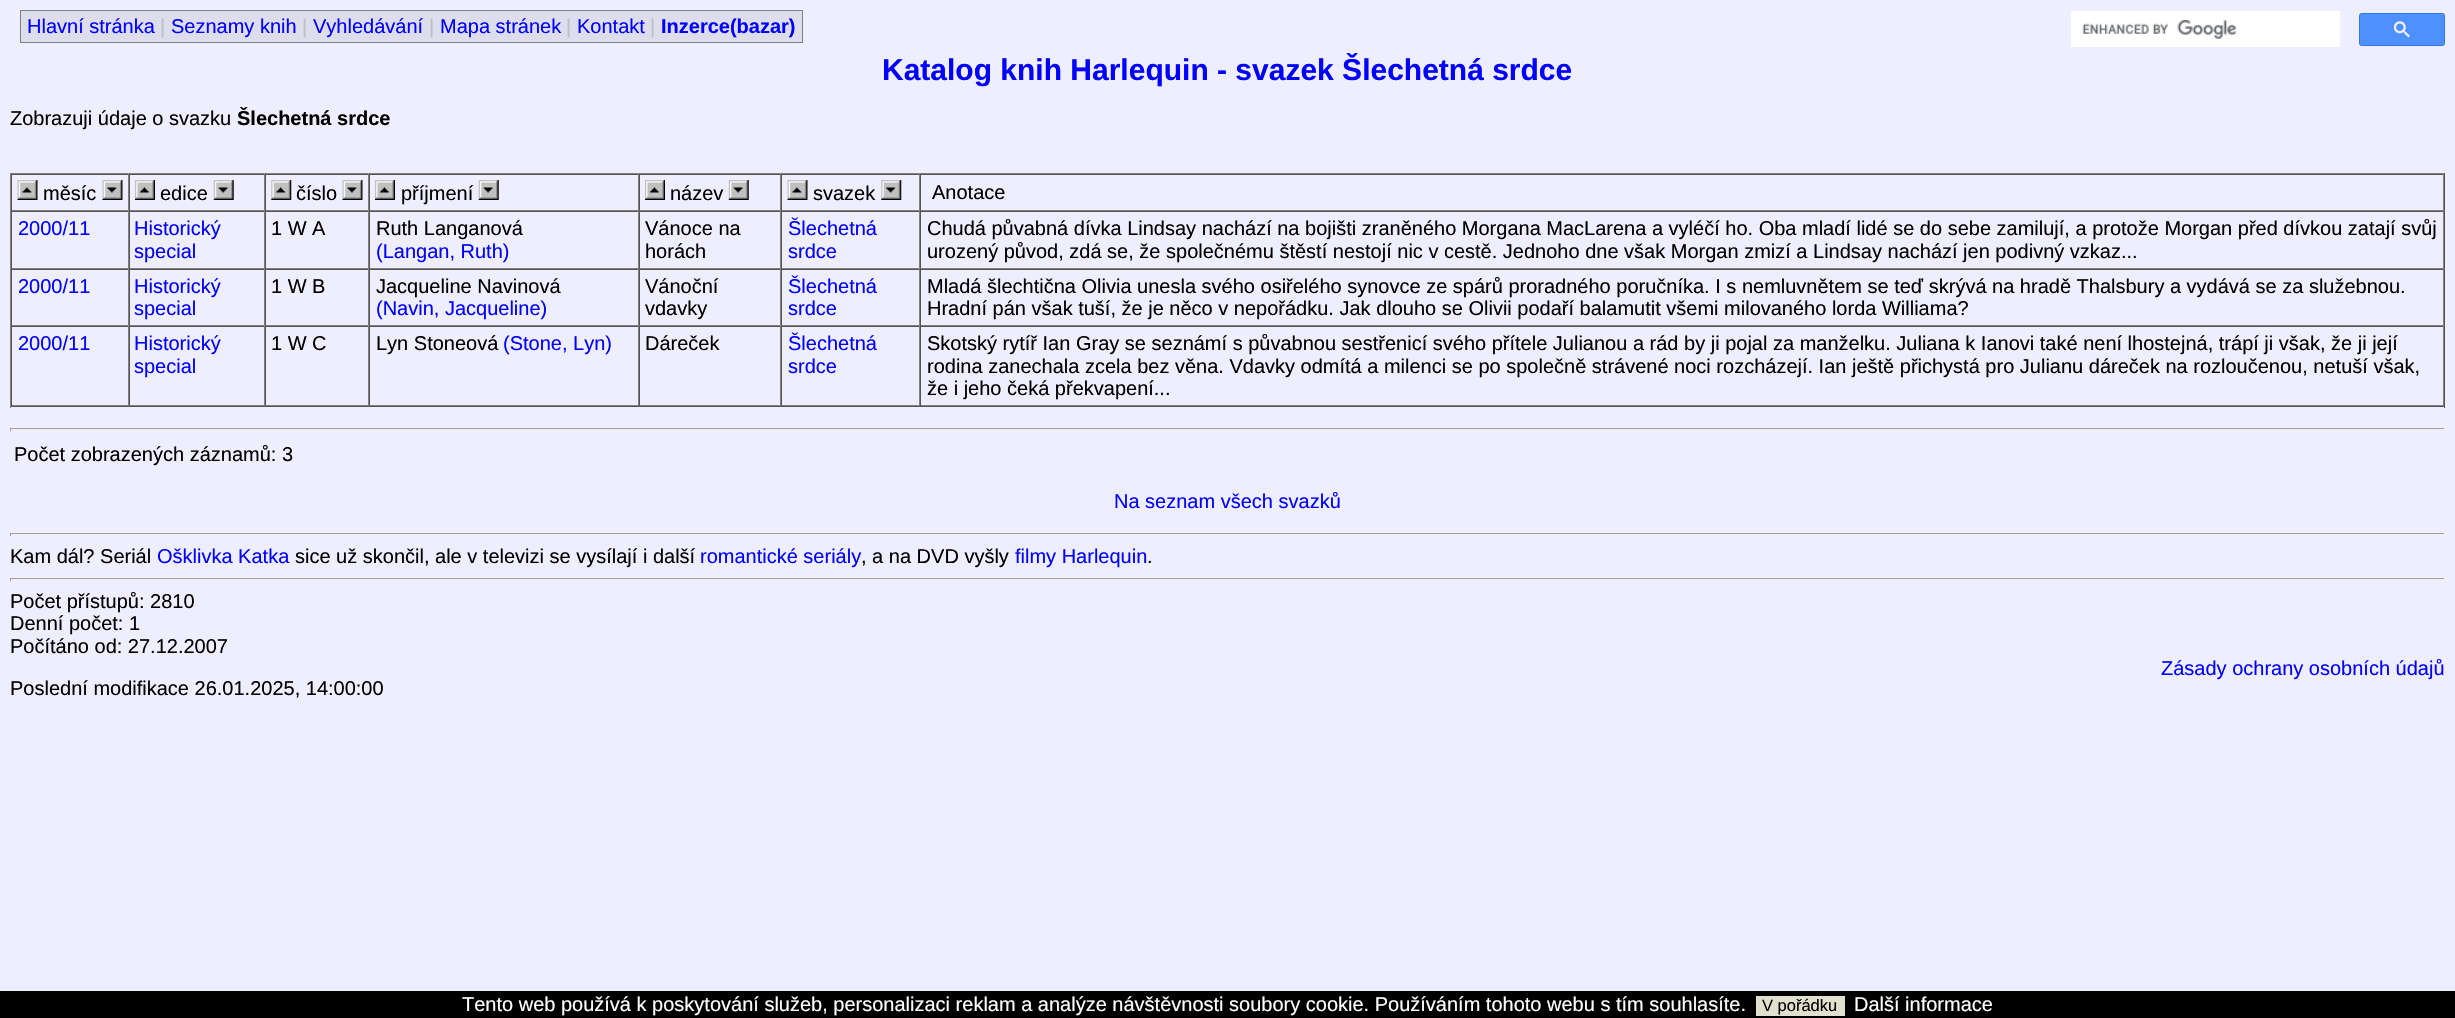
void draw(SkCanvas* canvas) {
	SkPaint paint;
	paint.setAntiAlias(true);
	canvas->clear(0xffeeeeff);
	paint.setColor(0xffddddee);
	canvas->drawRect(SkRect::MakeXYWH(20.5, 10.5, 782, 32), paint);
	paint.setStroke(true);
	paint.setStrokeWidth(1);
	paint.setColor(0xff808080);
	canvas->drawRect(SkRect::MakeXYWH(20.5, 10.5, 782, 32), paint);
	SkFont f1(fontMgr->matchFamilyStyle("Liberation Sans", SkFontStyle::Normal()), 20);
	f1.setSubpixel(true);
	paint.setStroke(false);
	paint.setColor(0xff0000ff);
	canvas->drawString("Hlavní stránka", 27, 33, f1, paint);
	paint.setColor(0xffc0c0c0);
	canvas->drawString("|", 160, 33, f1, paint);
	paint.setColor(0xff0000ff);
	canvas->drawString("Seznamy knih", 171, 33, f1, paint);
	paint.setColor(0xffc0c0c0);
	canvas->drawString("|", 302, 33, f1, paint);
	paint.setColor(0xff0000ff);
	canvas->drawString("Vyhledávání", 313, 33, f1, paint);
	paint.setColor(0xffc0c0c0);
	canvas->drawString("|", 429, 33, f1, paint);
	paint.setColor(0xff0000ff);
	canvas->drawString("Mapa stránek", 440, 33, f1, paint);
	paint.setColor(0xffc0c0c0);
	canvas->drawString("|", 566, 33, f1, paint);
	paint.setColor(0xff0000ff);
	canvas->drawString("Kontakt", 577, 33, f1, paint);
	paint.setColor(0xffc0c0c0);
	canvas->drawString("|", 650, 33, f1, paint);
	SkFont f2(fontMgr->matchFamilyStyle("Liberation Sans", SkFontStyle::Bold()), 20);
	f2.setSubpixel(true);
	paint.setColor(0xff0000ff);
	canvas->drawString("Inzerce(bazar)", 661, 33, f2, paint);
	paint.setColor(0xffffffff);
	canvas->drawRect(SkRect::MakeXYWH(2071, 11, 269, 36), paint);
	canvas->drawImageRect(SkImages::DeferredFromEncodedData(SkData::MakeFromFileName("img1.png")), SkRect::MakeXYWH(2082, 20, 155, 19), SkSamplingOptions());
	paint.setColor(0xff4d90fe);
	canvas->drawRoundRect(SkRect::MakeXYWH(2359.5, 13.5, 85, 32), 2, 2, paint);
	paint.setStroke(true);
	paint.setColor(0xff3079ed);
	canvas->drawRoundRect(SkRect::MakeXYWH(2359.5, 13.5, 85, 32), 2, 2, paint);
	canvas->drawImageRect(SkImages::DeferredFromEncodedData(SkData::MakeFromFileName("img2.png")), SkRect::MakeXYWH(2394, 21, 16, 17), SkSamplingOptions());
	SkFont f3(fontMgr->matchFamilyStyle("Liberation Sans", SkFontStyle::Bold()), 30);
	f3.setSubpixel(true);
	paint.setStroke(false);
	paint.setColor(0xff0000ff);
	canvas->drawString("Katalog knih Harlequin - svazek Šlechetná srdce", 882, 80, f3, paint);
	paint.setColor(0xff000000);
	canvas->drawString("Zobrazuji údaje o svazku", 10, 125, f1, paint);
	canvas->drawString("Šlechetná srdce", 237, 125, f2, paint);
	paint.setColor(0xff808080);
	canvas->drawRect(SkRect::MakeXYWH(10, 173, 2435, 1), paint);
	paint.setColor(0xff555555);
	canvas->drawRect(SkRect::MakeXYWH(2444, 173, 1, 235), paint);
	canvas->drawRect(SkRect::MakeXYWH(10, 406, 2435, 1), paint);
	paint.setColor(0xff808080);
	canvas->drawRect(SkRect::MakeXYWH(10, 173, 1, 235), paint);
	paint.setColor(0xff555555);
	canvas->drawRect(SkRect::MakeXYWH(11, 174, 2433, 1), paint);
	paint.setColor(0xff808080);
	canvas->drawRect(SkRect::MakeXYWH(128, 174, 1, 37), paint);
	canvas->drawRect(SkRect::MakeXYWH(11, 210, 118, 1), paint);
	paint.setColor(0xff555555);
	canvas->drawRect(SkRect::MakeXYWH(11, 174, 1, 37), paint);
	canvas->drawImageRect(SkImages::DeferredFromEncodedData(SkData::MakeFromFileName("img3.png")), SkRect::MakeXYWH(17, 180, 21, 20), SkSamplingOptions());
	paint.setColor(0xff000000);
	canvas->drawString("měsíc", 43, 200, f1, paint);
	canvas->drawImageRect(SkImages::DeferredFromEncodedData(SkData::MakeFromFileName("img4.png")), SkRect::MakeXYWH(102, 180, 21, 20), SkSamplingOptions());
	paint.setColor(0xff808080);
	canvas->drawRect(SkRect::MakeXYWH(264, 174, 1, 37), paint);
	canvas->drawRect(SkRect::MakeXYWH(129, 210, 136, 1), paint);
	paint.setColor(0xff555555);
	canvas->drawRect(SkRect::MakeXYWH(129, 174, 1, 37), paint);
	canvas->drawImageRect(SkImages::DeferredFromEncodedData(SkData::MakeFromFileName("img5.png")), SkRect::MakeXYWH(135, 180, 20, 20), SkSamplingOptions());
	paint.setColor(0xff000000);
	canvas->drawString("edice", 160, 200, f1, paint);
	canvas->drawImageRect(SkImages::DeferredFromEncodedData(SkData::MakeFromFileName("img6.png")), SkRect::MakeXYWH(213, 180, 21, 20), SkSamplingOptions());
	paint.setColor(0xff808080);
	canvas->drawRect(SkRect::MakeXYWH(368, 174, 1, 37), paint);
	canvas->drawRect(SkRect::MakeXYWH(265, 210, 104, 1), paint);
	paint.setColor(0xff555555);
	canvas->drawRect(SkRect::MakeXYWH(265, 174, 1, 37), paint);
	canvas->drawImageRect(SkImages::DeferredFromEncodedData(SkData::MakeFromFileName("img7.png")), SkRect::MakeXYWH(271, 180, 21, 20), SkSamplingOptions());
	paint.setColor(0xff000000);
	canvas->drawString("číslo", 296, 200, f1, paint);
	canvas->drawImageRect(SkImages::DeferredFromEncodedData(SkData::MakeFromFileName("img8.png")), SkRect::MakeXYWH(342, 180, 21, 20), SkSamplingOptions());
	paint.setColor(0xff808080);
	canvas->drawRect(SkRect::MakeXYWH(638, 174, 1, 37), paint);
	canvas->drawRect(SkRect::MakeXYWH(369, 210, 270, 1), paint);
	paint.setColor(0xff555555);
	canvas->drawRect(SkRect::MakeXYWH(369, 174, 1, 37), paint);
	canvas->drawImageRect(SkImages::DeferredFromEncodedData(SkData::MakeFromFileName("img5.png")), SkRect::MakeXYWH(375, 180, 20, 20), SkSamplingOptions());
	paint.setColor(0xff000000);
	canvas->drawString("příjmení", 401, 200, f1, paint);
	canvas->drawImageRect(SkImages::DeferredFromEncodedData(SkData::MakeFromFileName("img6.png")), SkRect::MakeXYWH(478, 180, 21, 20), SkSamplingOptions());
	paint.setColor(0xff808080);
	canvas->drawRect(SkRect::MakeXYWH(780, 174, 1, 37), paint);
	canvas->drawRect(SkRect::MakeXYWH(639, 210, 142, 1), paint);
	paint.setColor(0xff555555);
	canvas->drawRect(SkRect::MakeXYWH(639, 174, 1, 37), paint);
	canvas->drawImageRect(SkImages::DeferredFromEncodedData(SkData::MakeFromFileName("img5.png")), SkRect::MakeXYWH(645, 180, 20, 20), SkSamplingOptions());
	paint.setColor(0xff000000);
	canvas->drawString("název", 670, 200, f1, paint);
	canvas->drawImageRect(SkImages::DeferredFromEncodedData(SkData::MakeFromFileName("img9.png")), SkRect::MakeXYWH(728, 180, 21, 20), SkSamplingOptions());
	paint.setColor(0xff808080);
	canvas->drawRect(SkRect::MakeXYWH(919, 174, 1, 37), paint);
	canvas->drawRect(SkRect::MakeXYWH(781, 210, 139, 1), paint);
	paint.setColor(0xff555555);
	canvas->drawRect(SkRect::MakeXYWH(781, 174, 1, 37), paint);
	canvas->drawImageRect(SkImages::DeferredFromEncodedData(SkData::MakeFromFileName("img3.png")), SkRect::MakeXYWH(787, 180, 21, 20), SkSamplingOptions());
	paint.setColor(0xff000000);
	canvas->drawString("svazek", 813, 200, f1, paint);
	canvas->drawImageRect(SkImages::DeferredFromEncodedData(SkData::MakeFromFileName("img10.png")), SkRect::MakeXYWH(881, 180, 21, 20), SkSamplingOptions());
	paint.setColor(0xff808080);
	canvas->drawRect(SkRect::MakeXYWH(2443, 174, 1, 37), paint);
	canvas->drawRect(SkRect::MakeXYWH(920, 210, 1524, 1), paint);
	paint.setColor(0xff555555);
	canvas->drawRect(SkRect::MakeXYWH(920, 174, 1, 37), paint);
	paint.setColor(0xff000000);
	canvas->drawString("Anotace", 932, 199, f1, paint);
	paint.setColor(0xff555555);
	canvas->drawRect(SkRect::MakeXYWH(11, 211, 2433, 1), paint);
	paint.setColor(0xff808080);
	canvas->drawRect(SkRect::MakeXYWH(128, 211, 1, 58), paint);
	canvas->drawRect(SkRect::MakeXYWH(11, 268, 118, 1), paint);
	paint.setColor(0xff555555);
	canvas->drawRect(SkRect::MakeXYWH(11, 211, 1, 58), paint);
	paint.setColor(0xff0000ff);
	canvas->drawString("2000/11", 18, 235, f1, paint);
	paint.setColor(0xff808080);
	canvas->drawRect(SkRect::MakeXYWH(264, 211, 1, 58), paint);
	canvas->drawRect(SkRect::MakeXYWH(129, 268, 136, 1), paint);
	paint.setColor(0xff555555);
	canvas->drawRect(SkRect::MakeXYWH(129, 211, 1, 58), paint);
	paint.setColor(0xff0000ff);
	canvas->drawString("Historický", 134, 235, f1, paint);
	canvas->drawString("special", 134, 258, f1, paint);
	paint.setColor(0xff808080);
	canvas->drawRect(SkRect::MakeXYWH(368, 211, 1, 58), paint);
	canvas->drawRect(SkRect::MakeXYWH(265, 268, 104, 1), paint);
	paint.setColor(0xff555555);
	canvas->drawRect(SkRect::MakeXYWH(265, 211, 1, 58), paint);
	paint.setColor(0xff000000);
	canvas->drawString("1 W A", 271, 235, f1, paint);
	paint.setColor(0xff808080);
	canvas->drawRect(SkRect::MakeXYWH(638, 211, 1, 58), paint);
	canvas->drawRect(SkRect::MakeXYWH(369, 268, 270, 1), paint);
	paint.setColor(0xff555555);
	canvas->drawRect(SkRect::MakeXYWH(369, 211, 1, 58), paint);
	paint.setColor(0xff000000);
	canvas->drawString("Ruth Langanová", 376, 235, f1, paint);
	paint.setColor(0xff0000ff);
	canvas->drawString("(Langan, Ruth)", 376, 258, f1, paint);
	paint.setColor(0xff808080);
	canvas->drawRect(SkRect::MakeXYWH(780, 211, 1, 58), paint);
	canvas->drawRect(SkRect::MakeXYWH(639, 268, 142, 1), paint);
	paint.setColor(0xff555555);
	canvas->drawRect(SkRect::MakeXYWH(639, 211, 1, 58), paint);
	paint.setColor(0xff000000);
	canvas->drawString("Vánoce na", 645, 235, f1, paint);
	canvas->drawString("horách", 645, 258, f1, paint);
	paint.setColor(0xff808080);
	canvas->drawRect(SkRect::MakeXYWH(919, 211, 1, 58), paint);
	canvas->drawRect(SkRect::MakeXYWH(781, 268, 139, 1), paint);
	paint.setColor(0xff555555);
	canvas->drawRect(SkRect::MakeXYWH(781, 211, 1, 58), paint);
	paint.setColor(0xff0000ff);
	canvas->drawString("Šlechetná", 788, 235, f1, paint);
	canvas->drawString("srdce", 788, 258, f1, paint);
	paint.setColor(0xff808080);
	canvas->drawRect(SkRect::MakeXYWH(2443, 211, 1, 58), paint);
	canvas->drawRect(SkRect::MakeXYWH(920, 268, 1524, 1), paint);
	paint.setColor(0xff555555);
	canvas->drawRect(SkRect::MakeXYWH(920, 211, 1, 58), paint);
	paint.setColor(0xff000000);
	canvas->drawString("Chudá půvabná dívka Lindsay nachází na bojišti zraněného Morgana MacLarena a vyléčí ho. Oba mladí lidé se do sebe zamilují, a protože Morgan před dívkou zatají svůj", 927, 235, f1, paint);
	canvas->drawString("urozený původ, zdá se, že společnému štěstí nestojí nic v cestě. Jednoho dne však Morgan zmizí a Lindsay nachází jen podivný vzkaz...", 927, 258, f1, paint);
	paint.setColor(0xff555555);
	canvas->drawRect(SkRect::MakeXYWH(11, 269, 2433, 1), paint);
	paint.setColor(0xff808080);
	canvas->drawRect(SkRect::MakeXYWH(128, 269, 1, 57), paint);
	canvas->drawRect(SkRect::MakeXYWH(11, 325, 118, 1), paint);
	paint.setColor(0xff555555);
	canvas->drawRect(SkRect::MakeXYWH(11, 269, 1, 57), paint);
	paint.setColor(0xff0000ff);
	canvas->drawString("2000/11", 18, 293, f1, paint);
	paint.setColor(0xff808080);
	canvas->drawRect(SkRect::MakeXYWH(264, 269, 1, 57), paint);
	canvas->drawRect(SkRect::MakeXYWH(129, 325, 136, 1), paint);
	paint.setColor(0xff555555);
	canvas->drawRect(SkRect::MakeXYWH(129, 269, 1, 57), paint);
	paint.setColor(0xff0000ff);
	canvas->drawString("Historický", 134, 293, f1, paint);
	canvas->drawString("special", 134, 315, f1, paint);
	paint.setColor(0xff808080);
	canvas->drawRect(SkRect::MakeXYWH(368, 269, 1, 57), paint);
	canvas->drawRect(SkRect::MakeXYWH(265, 325, 104, 1), paint);
	paint.setColor(0xff555555);
	canvas->drawRect(SkRect::MakeXYWH(265, 269, 1, 57), paint);
	paint.setColor(0xff000000);
	canvas->drawString("1 W B", 271, 293, f1, paint);
	paint.setColor(0xff808080);
	canvas->drawRect(SkRect::MakeXYWH(638, 269, 1, 57), paint);
	canvas->drawRect(SkRect::MakeXYWH(369, 325, 270, 1), paint);
	paint.setColor(0xff555555);
	canvas->drawRect(SkRect::MakeXYWH(369, 269, 1, 57), paint);
	paint.setColor(0xff000000);
	canvas->drawString("Jacqueline Navinová", 376, 293, f1, paint);
	paint.setColor(0xff0000ff);
	canvas->drawString("(Navin, Jacqueline)", 376, 315, f1, paint);
	paint.setColor(0xff808080);
	canvas->drawRect(SkRect::MakeXYWH(780, 269, 1, 57), paint);
	canvas->drawRect(SkRect::MakeXYWH(639, 325, 142, 1), paint);
	paint.setColor(0xff555555);
	canvas->drawRect(SkRect::MakeXYWH(639, 269, 1, 57), paint);
	paint.setColor(0xff000000);
	canvas->drawString("Vánoční", 645, 293, f1, paint);
	canvas->drawString("vdavky", 645, 315, f1, paint);
	paint.setColor(0xff808080);
	canvas->drawRect(SkRect::MakeXYWH(919, 269, 1, 57), paint);
	canvas->drawRect(SkRect::MakeXYWH(781, 325, 139, 1), paint);
	paint.setColor(0xff555555);
	canvas->drawRect(SkRect::MakeXYWH(781, 269, 1, 57), paint);
	paint.setColor(0xff0000ff);
	canvas->drawString("Šlechetná", 788, 293, f1, paint);
	canvas->drawString("srdce", 788, 315, f1, paint);
	paint.setColor(0xff808080);
	canvas->drawRect(SkRect::MakeXYWH(2443, 269, 1, 57), paint);
	canvas->drawRect(SkRect::MakeXYWH(920, 325, 1524, 1), paint);
	paint.setColor(0xff555555);
	canvas->drawRect(SkRect::MakeXYWH(920, 269, 1, 57), paint);
	paint.setColor(0xff000000);
	canvas->drawString("Mladá šlechtična Olivia unesla svého osiřelého synovce ze spárů proradného poručníka. I s nemluvnětem se teď skrývá na hradě Thalsbury a vydává se za služebnou.", 927, 293, f1, paint);
	canvas->drawString("Hradní pán však tuší, že je něco v nepořádku. Jak dlouho se Olivii podaří balamutit všemi milovaného lorda Williama?", 927, 315, f1, paint);
	paint.setColor(0xff555555);
	canvas->drawRect(SkRect::MakeXYWH(11, 326, 2433, 1), paint);
	paint.setColor(0xff808080);
	canvas->drawRect(SkRect::MakeXYWH(128, 326, 1, 80), paint);
	canvas->drawRect(SkRect::MakeXYWH(11, 405, 118, 1), paint);
	paint.setColor(0xff555555);
	canvas->drawRect(SkRect::MakeXYWH(11, 326, 1, 80), paint);
	paint.setColor(0xff0000ff);
	canvas->drawString("2000/11", 18, 350, f1, paint);
	paint.setColor(0xff808080);
	canvas->drawRect(SkRect::MakeXYWH(264, 326, 1, 80), paint);
	canvas->drawRect(SkRect::MakeXYWH(129, 405, 136, 1), paint);
	paint.setColor(0xff555555);
	canvas->drawRect(SkRect::MakeXYWH(129, 326, 1, 80), paint);
	paint.setColor(0xff0000ff);
	canvas->drawString("Historický", 134, 350, f1, paint);
	canvas->drawString("special", 134, 373, f1, paint);
	paint.setColor(0xff808080);
	canvas->drawRect(SkRect::MakeXYWH(368, 326, 1, 80), paint);
	canvas->drawRect(SkRect::MakeXYWH(265, 405, 104, 1), paint);
	paint.setColor(0xff555555);
	canvas->drawRect(SkRect::MakeXYWH(265, 326, 1, 80), paint);
	paint.setColor(0xff000000);
	canvas->drawString("1 W C", 271, 350, f1, paint);
	paint.setColor(0xff808080);
	canvas->drawRect(SkRect::MakeXYWH(638, 326, 1, 80), paint);
	canvas->drawRect(SkRect::MakeXYWH(369, 405, 270, 1), paint);
	paint.setColor(0xff555555);
	canvas->drawRect(SkRect::MakeXYWH(369, 326, 1, 80), paint);
	paint.setColor(0xff000000);
	canvas->drawString("Lyn Stoneová", 376, 350, f1, paint);
	paint.setColor(0xff0000ff);
	canvas->drawString("(Stone, Lyn)", 503, 350, f1, paint);
	paint.setColor(0xff808080);
	canvas->drawRect(SkRect::MakeXYWH(780, 326, 1, 80), paint);
	canvas->drawRect(SkRect::MakeXYWH(639, 405, 142, 1), paint);
	paint.setColor(0xff555555);
	canvas->drawRect(SkRect::MakeXYWH(639, 326, 1, 80), paint);
	paint.setColor(0xff000000);
	canvas->drawString("Dáreček", 645, 350, f1, paint);
	paint.setColor(0xff808080);
	canvas->drawRect(SkRect::MakeXYWH(919, 326, 1, 80), paint);
	canvas->drawRect(SkRect::MakeXYWH(781, 405, 139, 1), paint);
	paint.setColor(0xff555555);
	canvas->drawRect(SkRect::MakeXYWH(781, 326, 1, 80), paint);
	paint.setColor(0xff0000ff);
	canvas->drawString("Šlechetná", 788, 350, f1, paint);
	canvas->drawString("srdce", 788, 373, f1, paint);
	paint.setColor(0xff808080);
	canvas->drawRect(SkRect::MakeXYWH(2443, 326, 1, 80), paint);
	canvas->drawRect(SkRect::MakeXYWH(920, 405, 1524, 1), paint);
	paint.setColor(0xff555555);
	canvas->drawRect(SkRect::MakeXYWH(920, 326, 1, 80), paint);
	paint.setColor(0xff000000);
	canvas->drawString("Skotský rytíř Ian Gray se seznámí s půvabnou sestřenicí svého přítele Julianou a rád by ji pojal za manželku. Juliana k Ianovi také není lhostejná, trápí ji však, že ji její", 927, 350, f1, paint);
	canvas->drawString("rodina zanechala zcela bez věna. Vdavky odmítá a milenci se po společně strávené noci rozcházejí. Ian ještě přichystá pro Julianu dáreček na rozloučenou, netuší však,", 927, 373, f1, paint);
	canvas->drawString("že i jeho čeká překvapení...", 927, 395, f1, paint);
	paint.setColor(0xff9f9f9f);
	canvas->drawRect(SkRect::MakeXYWH(10, 428, 2435, 1), paint);
	paint.setColor(0xffeeeeee);
	canvas->drawRect(SkRect::MakeXYWH(2444, 428, 1, 3), paint);
	canvas->drawRect(SkRect::MakeXYWH(10, 429, 2435, 1), paint);
	paint.setColor(0xff9f9f9f);
	canvas->drawRect(SkRect::MakeXYWH(10, 428, 1, 3), paint);
	paint.setColor(0xff000000);
	canvas->drawString("Počet zobrazených záznamů: 3", 14, 461, f1, paint);
	paint.setColor(0xff0000ff);
	canvas->drawString("Na seznam všech svazků", 1114, 508, f1, paint);
	paint.setColor(0xff9f9f9f);
	canvas->drawRect(SkRect::MakeXYWH(10, 533, 2435, 1), paint);
	paint.setColor(0xffeeeeee);
	canvas->drawRect(SkRect::MakeXYWH(2444, 533, 1, 3), paint);
	canvas->drawRect(SkRect::MakeXYWH(10, 534, 2435, 1), paint);
	paint.setColor(0xff9f9f9f);
	canvas->drawRect(SkRect::MakeXYWH(10, 533, 1, 3), paint);
	paint.setColor(0xff000000);
	canvas->drawString("Kam dál? Seriál", 10, 563, f1, paint);
	paint.setColor(0xff0000ff);
	canvas->drawString("Ošklivka Katka", 157, 563, f1, paint);
	paint.setColor(0xff000000);
	canvas->drawString("sice už skončil, ale v televizi se vysílají i další", 295, 563, f1, paint);
	paint.setColor(0xff0000ff);
	canvas->drawString("romantické seriály", 700, 563, f1, paint);
	paint.setColor(0xff000000);
	canvas->drawString(", a na DVD vyšly", 861, 563, f1, paint);
	paint.setColor(0xff0000ff);
	canvas->drawString("filmy Harlequin", 1015, 563, f1, paint);
	paint.setColor(0xff000000);
	canvas->drawString(".", 1147, 563, f1, paint);
	paint.setColor(0xff9f9f9f);
	canvas->drawRect(SkRect::MakeXYWH(10, 578, 2435, 1), paint);
	paint.setColor(0xffeeeeee);
	canvas->drawRect(SkRect::MakeXYWH(2444, 578, 1, 3), paint);
	canvas->drawRect(SkRect::MakeXYWH(10, 579, 2435, 1), paint);
	paint.setColor(0xff9f9f9f);
	canvas->drawRect(SkRect::MakeXYWH(10, 578, 1, 3), paint);
	paint.setColor(0xff000000);
	canvas->drawString("Počet přístupů: 2810", 10, 608, f1, paint);
	canvas->drawString("Denní počet: 1", 10, 630, f1, paint);
	canvas->drawString("Počítáno od: 27.12.2007", 10, 653, f1, paint);
	paint.setColor(0xff0000ff);
	canvas->drawString("Zásady ochrany osobních údajů", 2161, 675, f1, paint);
	paint.setColor(0xff000000);
	canvas->drawString("Poslední modifikace 26.01.2025, 14:00:00", 10, 695, f1, paint);
	canvas->drawRect(SkRect::MakeXYWH(0, 991, 2455, 27), paint);
	paint.setColor(0xffffffff);
	canvas->drawString("Tento web používá k poskytování služeb, personalizaci reklam a analýze návštěvnosti soubory cookie. Používáním tohoto webu s tím souhlasíte.", 462, 1011, f1, paint);
	paint.setColor(0xffe0e0cc);
	canvas->drawRect(SkRect::MakeXYWH(1756, 996, 89, 20), paint);
	SkFont f4(fontMgr->matchFamilyStyle("Liberation Sans", SkFontStyle::Normal()), 16.5);
	f4.setSubpixel(true);
	paint.setColor(0xff000000);
	canvas->drawString("V pořádku", 1762, 1011, f4, paint);
	paint.setColor(0xffffffff);
	canvas->drawString("Další informace", 1854, 1011, f1, paint);
}
